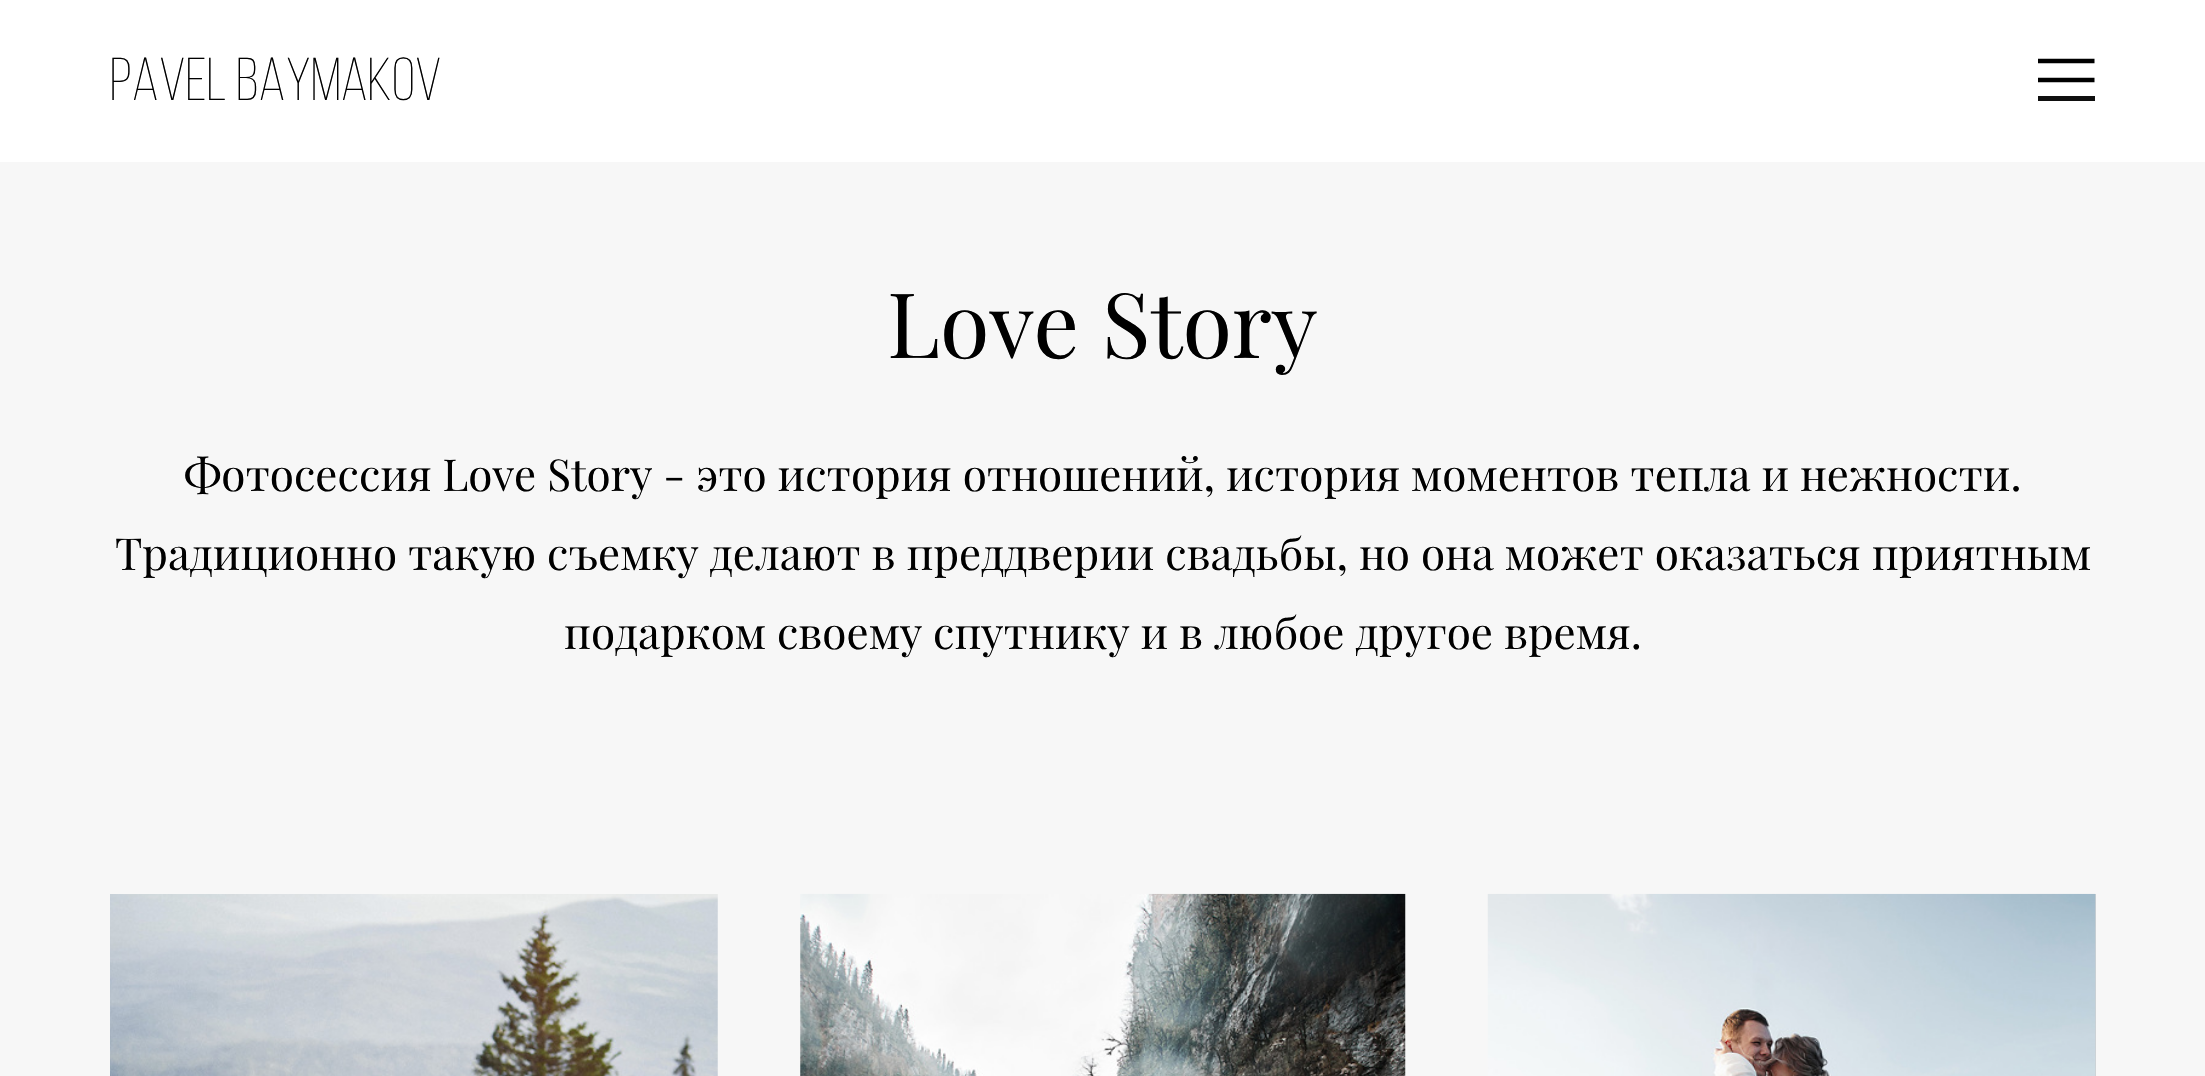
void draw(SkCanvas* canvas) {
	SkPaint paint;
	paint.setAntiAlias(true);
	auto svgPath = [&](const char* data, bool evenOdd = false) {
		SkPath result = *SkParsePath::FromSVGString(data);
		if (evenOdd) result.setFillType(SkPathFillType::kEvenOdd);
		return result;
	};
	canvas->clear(0xfff7f7f7);
	paint.setColor(0xffffffff);
	canvas->drawRect(SkRect::MakeXYWH(0, 0, 2205, 162), paint);
	SkFont f1(fontMgr->matchFamilyStyle("Bebas Neue", SkFontStyle(300, SkFontStyle::kNormal_Width, SkFontStyle::kUpright_Slant)), 60.5);
	f1.setSubpixel(true);
	paint.setColor(0xff000000);
	canvas->drawString("PAVEL BAYMAKOV", 110, 100, f1, paint);
	paint.setStroke(true);
	paint.setStrokeWidth(4.7);
	canvas->drawPath(svgPath("M2038 61H2094.5M2038 80H2094.5"), paint);
	paint.setStroke(false);
	paint.setColor(0xff0f0f0f);
	canvas->drawRect(SkRect::MakeXYWH(2038, 96, 57, 5), paint);
	SkFont f2(fontMgr->matchFamilyStyle("playfair display", SkFontStyle::Normal()), 90.25);
	f2.setSubpixel(true);
	paint.setColor(0xff000000);
	canvas->drawString("Love Story", 887, 358, f2, paint);
	SkFont f3(fontMgr->matchFamilyStyle("playfair display", SkFontStyle::Normal()), 44);
	f3.setSubpixel(true);
	canvas->drawString("Фотосессия Love Story - это история отношений, история моментов тепла и нежности.", 184, 491, f3, paint);
	canvas->drawString("Традиционно такую съемку делают в преддверии свадьбы, но она может оказаться приятным", 115, 570, f3, paint);
	canvas->drawString("подарком своему спутнику и в любое другое время.", 564, 649, f3, paint);
	canvas->drawImageRect(SkImages::DeferredFromEncodedData(SkData::MakeFromFileName("img1.png")), SkRect::MakeXYWH(110, 894, 608, 182), SkSamplingOptions());
	canvas->drawImageRect(SkImages::DeferredFromEncodedData(SkData::MakeFromFileName("img2.png")), SkRect::MakeXYWH(800, 893, 606, 183), SkSamplingOptions());
	paint.setColor(0xffcdd1d3);
	canvas->drawRect(SkRect::MakeXYWH(2095, 894, 1, 182), paint);
	canvas->drawImageRect(SkImages::DeferredFromEncodedData(SkData::MakeFromFileName("img3.png")), SkRect::MakeXYWH(1487, 893, 609, 183), SkSamplingOptions());
}
